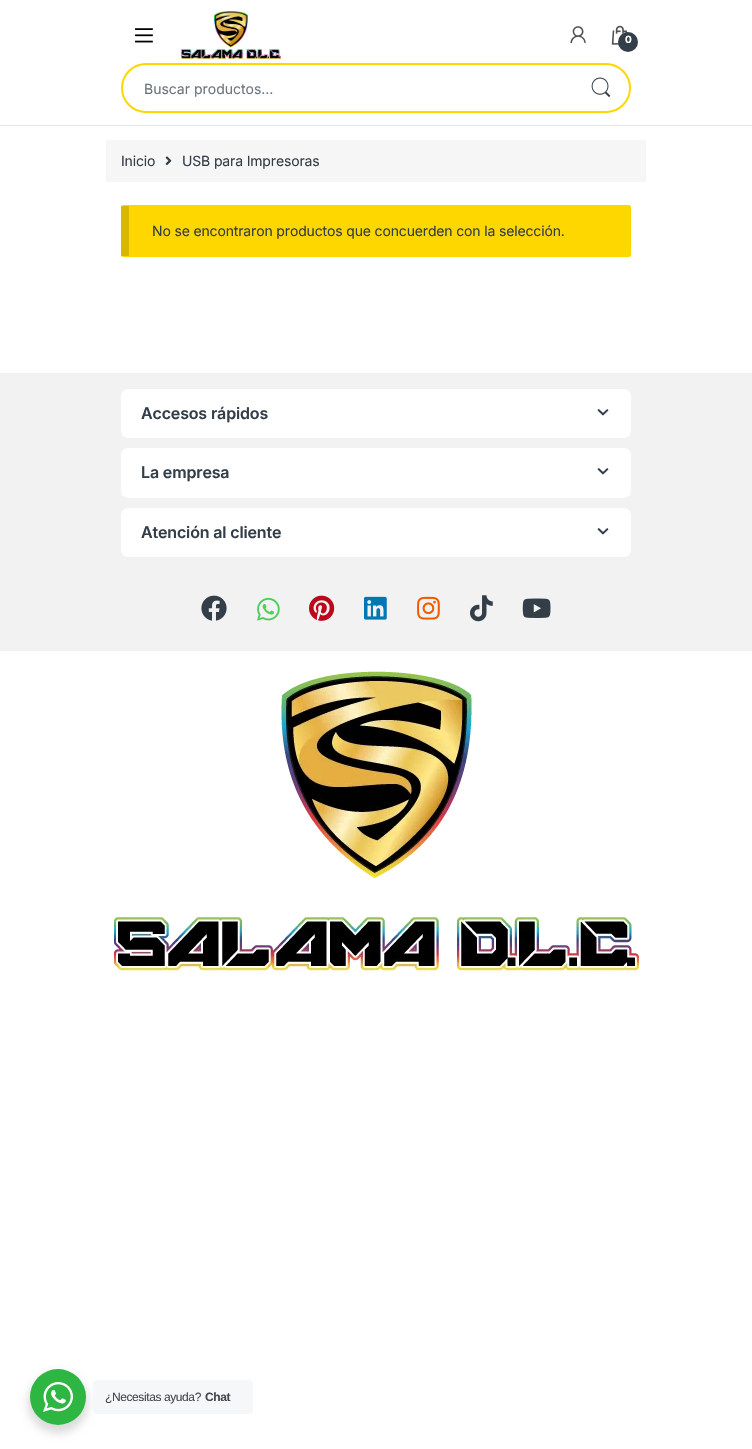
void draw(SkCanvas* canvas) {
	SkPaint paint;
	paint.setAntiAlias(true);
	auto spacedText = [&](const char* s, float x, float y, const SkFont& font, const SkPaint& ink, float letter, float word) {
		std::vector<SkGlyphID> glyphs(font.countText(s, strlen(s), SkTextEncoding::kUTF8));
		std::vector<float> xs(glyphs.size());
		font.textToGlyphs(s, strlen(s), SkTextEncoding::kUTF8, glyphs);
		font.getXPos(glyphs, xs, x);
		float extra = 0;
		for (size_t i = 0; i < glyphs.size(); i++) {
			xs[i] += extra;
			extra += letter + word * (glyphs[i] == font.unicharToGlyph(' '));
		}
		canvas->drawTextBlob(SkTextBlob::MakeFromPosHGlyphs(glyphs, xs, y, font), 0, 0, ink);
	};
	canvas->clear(0xffffffff);
	paint.setColor(0xffe7e7e7);
	canvas->drawRect(SkRect::MakeXYWH(0, 125, 752, 1), paint);
	canvas->drawImageRect(SkImages::DeferredFromEncodedData(SkData::MakeFromFileName("img1.png")), SkRect::MakeXYWH(135, 28, 18, 15), SkSamplingOptions());
	canvas->drawImageRect(SkImages::DeferredFromEncodedData(SkData::MakeFromFileName("img2.png")), SkRect::MakeXYWH(181, 11, 100, 48), SkSamplingOptions());
	canvas->drawImageRect(SkImages::DeferredFromEncodedData(SkData::MakeFromFileName("img3.png")), SkRect::MakeXYWH(570, 26, 16, 18), SkSamplingOptions());
	canvas->drawImageRect(SkImages::DeferredFromEncodedData(SkData::MakeFromFileName("img4.png")), SkRect::MakeXYWH(611, 25, 17, 20), SkSamplingOptions());
	paint.setColor(0xff333e48);
	canvas->drawCircle(628, 42, 10, paint);
	SkFont f1(fontMgr->matchFamilyStyle("Inter", SkFontStyle::Bold()), 10);
	f1.setSubpixel(true);
	paint.setColor(0xffffffff);
	spacedText("0", 625, 43, f1, paint, -0.15, 0);
	paint.setStroke(true);
	paint.setStrokeWidth(2);
	paint.setColor(0xfffed700);
	canvas->drawRoundRect(SkRect::MakeXYWH(122, 64, 508, 48), 24, 24, paint);
	SkFont f2(fontMgr->matchFamilyStyle("Inter", SkFontStyle::Normal()), 14);
	f2.setSubpixel(true);
	paint.setStroke(false);
	paint.setColor(0xff6c757d);
	canvas->drawString("Buscar productos…", 144, 94, f2, paint);
	canvas->drawImageRect(SkImages::DeferredFromEncodedData(SkData::MakeFromFileName("img5.png")), SkRect::MakeXYWH(591, 77, 20, 21), SkSamplingOptions());
	paint.setColor(0xfff7f6f6);
	canvas->drawRect(SkRect::MakeXYWH(106, 140, 540, 42), paint);
	paint.setColor(0xff333e48);
	spacedText("Inicio", 121, 166, f2, paint, -0.15, 0);
	canvas->drawImageRect(SkImages::DeferredFromEncodedData(SkData::MakeFromFileName("img6.png")), SkRect::MakeXYWH(165, 156, 7, 10), SkSamplingOptions());
	spacedText("USB para Impresoras", 182, 166, f2, paint, -0.15, 0);
	paint.setColor(0xfffed700);
	canvas->drawRoundRect(SkRect::MakeXYWH(121, 205, 510, 52), 2, 2, paint);
	paint.setColor(0x26000000);
	canvas->drawRect(SkRect::MakeXYWH(121, 206, 8, 50), paint);
	paint.setColor(0xff333e48);
	spacedText("No se encontraron productos que concuerden con la selección.", 152, 236, f2, paint, -0.15, 0);
	paint.setColor(0xfff2f2f2);
	canvas->drawRect(SkRect::MakeXYWH(0, 373, 752, 278), paint);
	paint.setColor(0xffffffff);
	canvas->drawRoundRect(SkRect::MakeXYWH(121, 389, 510, 49), 7, 7, paint);
	SkFont f3(fontMgr->matchFamilyStyle("Inter", SkFontStyle(600, SkFontStyle::kNormal_Width, SkFontStyle::kUpright_Slant)), 16);
	f3.setSubpixel(true);
	paint.setColor(0xff333e48);
	spacedText("Accesos rápidos", 141, 419, f3, paint, -0.15, 0);
	canvas->drawImageRect(SkImages::DeferredFromEncodedData(SkData::MakeFromFileName("img7.png")), SkRect::MakeXYWH(597, 409, 12, 7), SkSamplingOptions());
	paint.setColor(0xffffffff);
	canvas->drawRoundRect(SkRect::MakeXYWH(121, 448, 510, 50), 7, 7, paint);
	paint.setColor(0xff333e48);
	spacedText("La empresa", 141, 478, f3, paint, -0.15, 0);
	canvas->drawImageRect(SkImages::DeferredFromEncodedData(SkData::MakeFromFileName("img7.png")), SkRect::MakeXYWH(597, 468, 12, 7), SkSamplingOptions());
	paint.setColor(0xffffffff);
	canvas->drawRoundRect(SkRect::MakeXYWH(121, 508, 510, 49), 7, 7, paint);
	paint.setColor(0xff333e48);
	spacedText("Atención al cliente", 141, 538, f3, paint, -0.15, 0);
	canvas->drawImageRect(SkImages::DeferredFromEncodedData(SkData::MakeFromFileName("img7.png")), SkRect::MakeXYWH(597, 528, 12, 7), SkSamplingOptions());
	canvas->drawImageRect(SkImages::DeferredFromEncodedData(SkData::MakeFromFileName("img8.png")), SkRect::MakeXYWH(201, 595, 26, 26), SkSamplingOptions());
	canvas->drawImageRect(SkImages::DeferredFromEncodedData(SkData::MakeFromFileName("img9.png")), SkRect::MakeXYWH(257, 597, 23, 24), SkSamplingOptions());
	canvas->drawImageRect(SkImages::DeferredFromEncodedData(SkData::MakeFromFileName("img10.png")), SkRect::MakeXYWH(309, 595, 26, 26), SkSamplingOptions());
	canvas->drawImageRect(SkImages::DeferredFromEncodedData(SkData::MakeFromFileName("img11.png")), SkRect::MakeXYWH(364, 596, 23, 24), SkSamplingOptions());
	canvas->drawImageRect(SkImages::DeferredFromEncodedData(SkData::MakeFromFileName("img12.png")), SkRect::MakeXYWH(417, 596, 23, 24), SkSamplingOptions());
	canvas->drawImageRect(SkImages::DeferredFromEncodedData(SkData::MakeFromFileName("img13.png")), SkRect::MakeXYWH(470, 595, 23, 27), SkSamplingOptions());
	canvas->drawImageRect(SkImages::DeferredFromEncodedData(SkData::MakeFromFileName("img14.png")), SkRect::MakeXYWH(522, 598, 29, 20), SkSamplingOptions());
	canvas->drawImageRect(SkImages::DeferredFromEncodedData(SkData::MakeFromFileName("img15.png")), SkRect::MakeXYWH(114, 671, 525, 300), SkSamplingOptions());
	paint.setColor(0x24000000);
	paint.setMaskFilter(SkMaskFilter::MakeBlur(kNormal_SkBlurStyle, 4));
	canvas->drawRoundRect(SkRect::MakeXYWH(28, 1373, 60, 60), 30, 30, paint);
	paint.setMaskFilter(nullptr);
	paint.setColor(0xff2db742);
	canvas->drawCircle(58, 1397, 28, paint);
	canvas->drawImageRect(SkImages::DeferredFromEncodedData(SkData::MakeFromFileName("img16.png")), SkRect::MakeXYWH(43, 1382, 30, 30), SkSamplingOptions());
	paint.setColor(0xfff5f7f9);
	canvas->drawRoundRect(SkRect::MakeXYWH(93, 1380, 160, 34), 4, 4, paint);
	SkFont f4(fontMgr->matchFamilyStyle("Liberation Sans", SkFontStyle::Normal()), 12);
	f4.setSubpixel(true);
	paint.setColor(0xff43474e);
	spacedText("¿Necesitas ayuda?", 105, 1401, f4, paint, -0.4, 0);
	SkFont f5(fontMgr->matchFamilyStyle("Liberation Sans", SkFontStyle::Bold()), 12);
	f5.setSubpixel(true);
	spacedText("Chat", 205, 1401, f5, paint, -0.4, 0);
}
